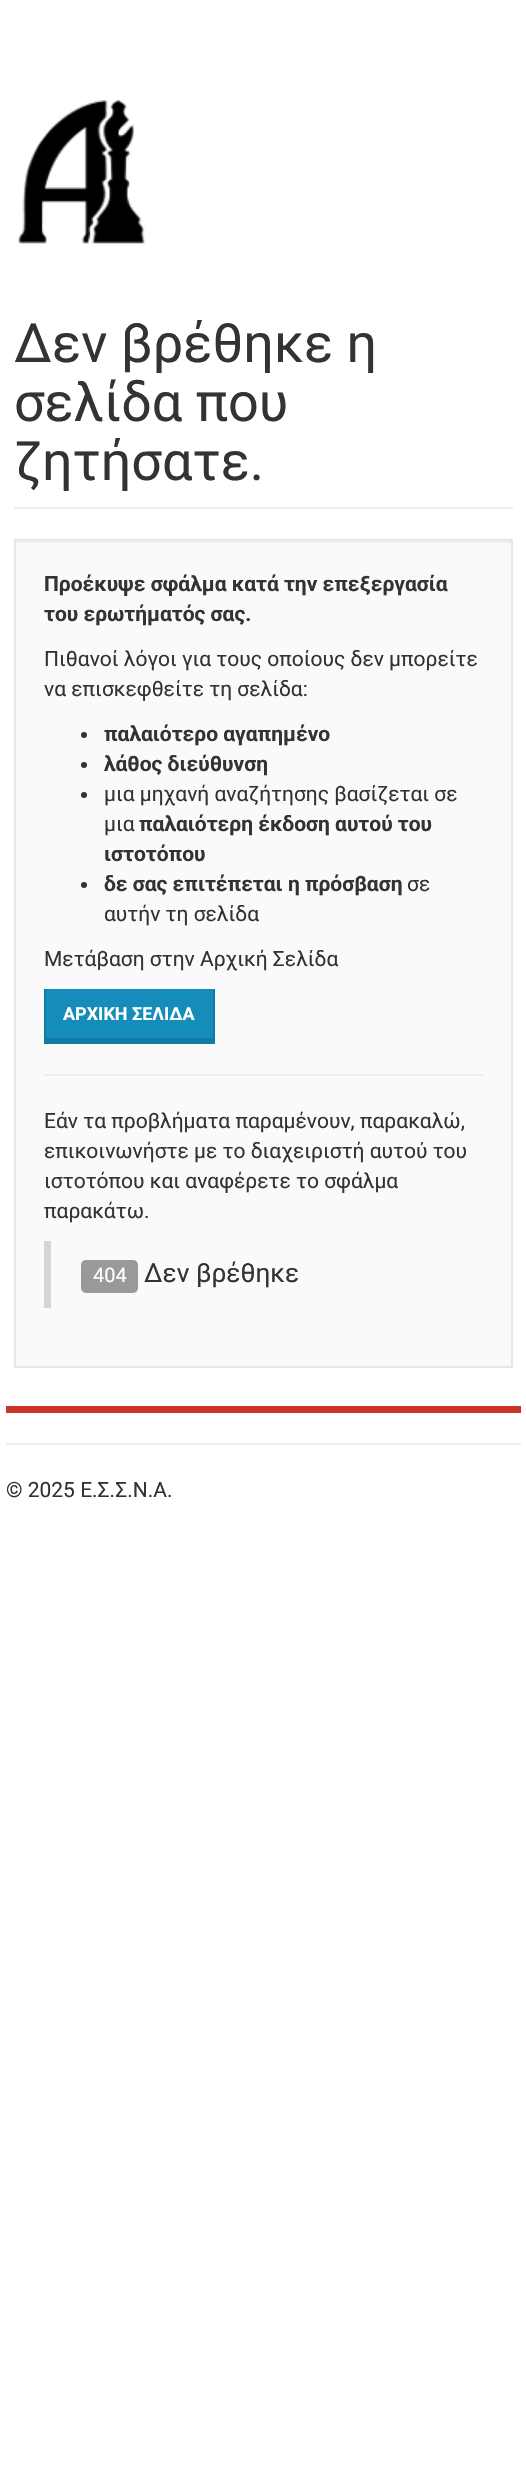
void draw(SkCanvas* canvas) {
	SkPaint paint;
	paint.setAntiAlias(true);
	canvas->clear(0xffffffff);
	canvas->drawImageRect(SkImages::DeferredFromEncodedData(SkData::MakeFromFileName("img1.png")), SkRect::MakeXYWH(17, 100, 129, 144), SkSamplingOptions());
	paint.setColor(0xffca322c);
	canvas->drawRect(SkRect::MakeXYWH(6, 1406, 515, 7), paint);
	paint.setColor(0xffeeeeee);
	canvas->drawRect(SkRect::MakeXYWH(14, 507, 499, 2), paint);
	SkFont f1(fontMgr->matchFamilyStyle("Roboto", SkFontStyle::Normal()), 54);
	f1.setSubpixel(true);
	paint.setColor(0xff333333);
	canvas->drawString("Δεν βρέθηκε η", 14, 362, f1, paint);
	canvas->drawString("σελίδα που", 14, 421, f1, paint);
	canvas->drawString("ζητήσατε.", 14, 480, f1, paint);
	paint.setColor(0xfffafafa);
	canvas->drawRect(SkRect::MakeXYWH(16, 543, 495, 823), paint);
	paint.setColor(0xffeeeeee);
	canvas->drawRect(SkRect::MakeXYWH(15, 541, 497, 2), paint);
	paint.setStroke(true);
	paint.setStrokeWidth(2);
	paint.setColor(0xffe7e7e7);
	canvas->drawRect(SkRect::MakeXYWH(15, 540, 497, 827), paint);
	SkFont f2(fontMgr->matchFamilyStyle("Roboto", SkFontStyle::Bold()), 21);
	f2.setSubpixel(true);
	paint.setStroke(false);
	paint.setColor(0xff333333);
	canvas->drawString("Προέκυψε σφάλμα κατά την επεξεργασία", 44, 591, f2, paint);
	canvas->drawString("του ερωτήματός σας.", 44, 621, f2, paint);
	SkFont f3(fontMgr->matchFamilyStyle("Roboto", SkFontStyle::Normal()), 21);
	f3.setSubpixel(true);
	canvas->drawString("Πιθανοί λόγοι για τους οποίους δεν μπορείτε", 44, 666, f3, paint);
	canvas->drawString("να επισκεφθείτε τη σελίδα:", 44, 696, f3, paint);
	canvas->drawCircle(84, 735, 3, paint);
	canvas->drawString("παλαιότερο αγαπημένο", 104, 741, f2, paint);
	canvas->drawCircle(84, 765, 3, paint);
	canvas->drawString("λάθος διεύθυνση", 104, 771, f2, paint);
	canvas->drawCircle(84, 795, 3, paint);
	canvas->drawString("μια μηχανή αναζήτησης βασίζεται σε", 104, 801, f3, paint);
	canvas->drawString("μια", 104, 831, f3, paint);
	canvas->drawString("παλαιότερη έκδοση αυτού του", 139, 831, f2, paint);
	canvas->drawString("ιστοτόπου", 104, 861, f2, paint);
	canvas->drawCircle(84, 885, 3, paint);
	canvas->drawString("δε σας επιτέπεται η πρόσβαση", 104, 891, f2, paint);
	canvas->drawString("σε", 407, 891, f3, paint);
	canvas->drawString("αυτήν τη σελίδα", 104, 921, f3, paint);
	canvas->drawString("Μετάβαση στην Αρχική Σελίδα", 44, 966, f3, paint);
	paint.setColor(0xff158cba);
	canvas->drawRect(SkRect::MakeXYWH(46, 989, 167, 49), paint);
	paint.setColor(0xff127ba3);
	canvas->drawRect(SkRect::MakeXYWH(213, 989, 2, 55), paint);
	canvas->drawRect(SkRect::MakeXYWH(44, 1038, 171, 6), paint);
	canvas->drawRect(SkRect::MakeXYWH(44, 989, 2, 55), paint);
	SkFont f4(fontMgr->matchFamilyStyle("Roboto", SkFontStyle::Bold()), 18);
	f4.setSubpixel(true);
	paint.setColor(0xffffffff);
	canvas->drawString("ΑΡΧΙΚΗ ΣΕΛΙΔΑ", 63, 1020, f4, paint);
	paint.setColor(0xffeeeeee);
	canvas->drawRect(SkRect::MakeXYWH(44, 1074, 439, 2), paint);
	paint.setColor(0xff333333);
	canvas->drawString("Εάν τα προβλήματα παραμένουν, παρακαλώ,", 44, 1128, f3, paint);
	canvas->drawString("επικοινωνήστε με το διαχειριστή αυτού του", 44, 1158, f3, paint);
	canvas->drawString("ιστοτόπου και αναφέρετε το σφάλμα", 44, 1188, f3, paint);
	canvas->drawString("παρακάτω.", 44, 1218, f3, paint);
	paint.setColor(0xffd5d5d5);
	canvas->drawRect(SkRect::MakeXYWH(44, 1241, 7, 67), paint);
	paint.setColor(0xff999999);
	canvas->drawRoundRect(SkRect::MakeXYWH(81, 1260, 57, 33), 5, 5, paint);
	SkFont f5(fontMgr->matchFamilyStyle("Roboto", SkFontStyle::Normal()), 20);
	f5.setSubpixel(true);
	paint.setColor(0xffffffff);
	canvas->drawString("404", 93, 1282, f5, paint);
	SkFont f6(fontMgr->matchFamilyStyle("Roboto", SkFontStyle::Normal()), 26.25);
	f6.setSubpixel(true);
	paint.setColor(0xff333333);
	canvas->drawString("Δεν βρέθηκε", 144, 1282, f6, paint);
	paint.setColor(0xffeeeeee);
	canvas->drawRect(SkRect::MakeXYWH(6, 1443, 515, 2), paint);
	paint.setColor(0xff333333);
	canvas->drawString("© 2025 Ε.Σ.Σ.Ν.Α.", 6, 1497, f3, paint);
}
